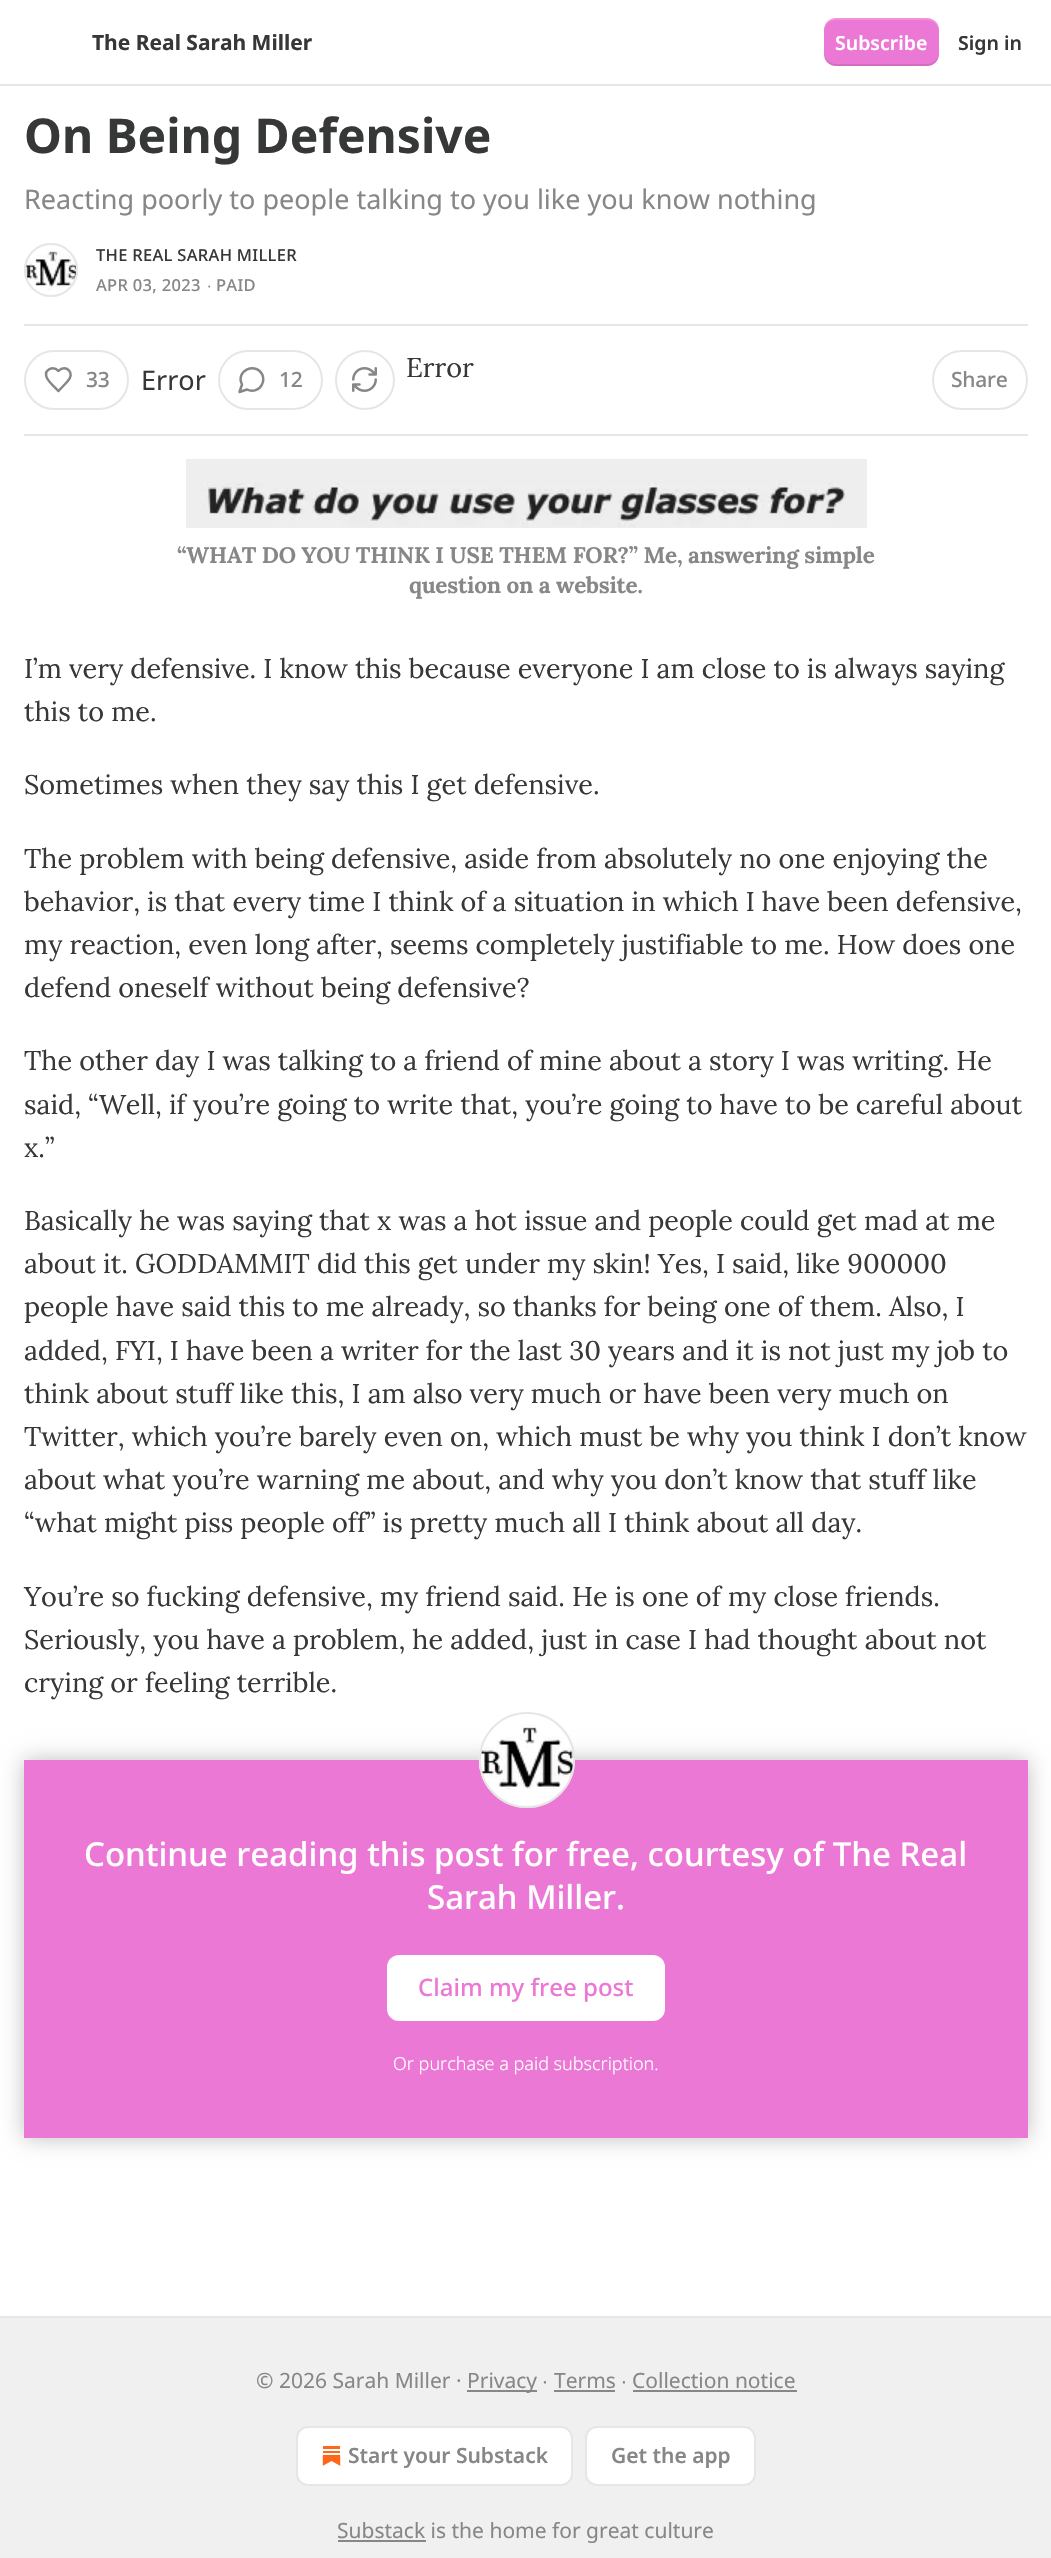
void draw(SkCanvas* canvas) {
	SkPaint paint;
	paint.setAntiAlias(true);
	auto spacedText = [&](const char* s, float x, float y, const SkFont& font, const SkPaint& ink, float letter, float word) {
		std::vector<SkGlyphID> glyphs(font.countText(s, strlen(s), SkTextEncoding::kUTF8));
		std::vector<float> xs(glyphs.size());
		font.textToGlyphs(s, strlen(s), SkTextEncoding::kUTF8, glyphs);
		font.getXPos(glyphs, xs, x);
		float extra = 0;
		for (size_t i = 0; i < glyphs.size(); i++) {
			xs[i] += extra;
			extra += letter + word * (glyphs[i] == font.unicharToGlyph(' '));
		}
		canvas->drawTextBlob(SkTextBlob::MakeFromPosHGlyphs(glyphs, xs, y, font), 0, 0, ink);
	};
	auto svgPath = [&](const char* data, bool evenOdd = false) {
		SkPath result = *SkParsePath::FromSVGString(data);
		if (evenOdd) result.setFillType(SkPathFillType::kEvenOdd);
		return result;
	};
	canvas->clear(0xffffffff);
	paint.setColor(0xffe6e6e6);
	canvas->drawRect(SkRect::MakeXYWH(0, 84, 1051, 2), paint);
	canvas->save();
	canvas->clipRect(SkRect::MakeXYWH(92, 18, 220, 48));
	SkFont f1(fontMgr->matchFamilyStyle("Noto Sans", SkFontStyle::Bold()), 21);
	f1.setSubpixel(true);
	paint.setColor(0xff363737);
	canvas->drawString("The Real Sarah Miller", 92, 50, f1, paint);
	canvas->restore();
	paint.setColor(0xffec78d5);
	canvas->drawRoundRect(SkRect::MakeXYWH(824, 18, 115, 48), 12, 12, paint);
	paint.setColor(0x1a000000);
	canvas->drawPath(svgPath("M824 52C824 69 838 66 851 66H912C925 66 939 69 939 52C939 59 934 64 927 64H836C829 64 824 59 824 52Z"), paint);
	paint.setColor(0x33ffffff);
	canvas->drawPath(svgPath("M836 20H927C934 20 939 25 939 32C939 15 925 18 912 18H851C838 18 824 15 824 32C824 25 829 20 836 20Z"), paint);
	SkFont f2(fontMgr->matchFamilyStyle("Noto Sans", SkFontStyle(600, SkFontStyle::kNormal_Width, SkFontStyle::kUpright_Slant)), 19.5);
	f2.setSubpixel(true);
	paint.setColor(0xffffffff);
	canvas->drawString("Subscribe", 835, 50, f2, paint);
	paint.setColor(0xff363737);
	canvas->drawString("Sign in", 958, 50, f2, paint);
	SkFont f3(fontMgr->matchFamilyStyle("Noto Sans", SkFontStyle::Bold()), 48);
	f3.setSubpixel(true);
	canvas->drawString("On Being Defensive", 24, 153, f3, paint);
	SkFont f4(fontMgr->matchFamilyStyle("Noto Sans", SkFontStyle::Normal()), 27);
	f4.setSubpixel(true);
	paint.setColor(0xff868787);
	canvas->drawString("Reacting poorly to people talking to you like you know nothing", 24, 209, f4, paint);
	paint.setStroke(true);
	paint.setStrokeWidth(2);
	paint.setColor(0xffe6e6e6);
	canvas->drawCircle(51, 270, 26, paint);
	canvas->drawImageRect(SkImages::DeferredFromEncodedData(SkData::MakeFromFileName("img1.png")), SkRect::MakeXYWH(24, 243, 54, 54), SkSamplingOptions());
	canvas->drawCircle(51, 270, 26, paint);
	SkFont f5(fontMgr->matchFamilyStyle("Noto Sans", SkFontStyle(500, SkFontStyle::kNormal_Width, SkFontStyle::kUpright_Slant)), 16.5);
	f5.setSubpixel(true);
	paint.setStroke(false);
	paint.setColor(0xff363737);
	spacedText("THE REAL SARAH MILLER", 96, 261, f5, paint, 0.3, 0);
	paint.setColor(0xff868787);
	spacedText("APR 03, 2023", 96, 291, f5, paint, 0.3, 0);
	SkFont f6(fontMgr->matchFamilyStyle("Liberation Sans", SkFontStyle::Normal()), 16.5);
	f6.setSubpixel(true);
	spacedText("∙", 207, 291, f6, paint, 0.3, 0);
	spacedText("PAID", 216, 291, f5, paint, 0.3, 0);
	paint.setColor(0xffe6e6e6);
	canvas->drawRect(SkRect::MakeXYWH(24, 324, 1004, 2), paint);
	canvas->drawRect(SkRect::MakeXYWH(24, 434, 1004, 2), paint);
	paint.setStroke(true);
	canvas->drawCircle(365, 380, 29, paint);
	canvas->drawImageRect(SkImages::DeferredFromEncodedData(SkData::MakeFromFileName("img2.png")), SkRect::MakeXYWH(352, 367, 25, 25), SkSamplingOptions());
	SkFont f7(fontMgr->matchFamilyStyle("Lora", SkFontStyle::Normal()), 27);
	f7.setSubpixel(true);
	paint.setStroke(false);
	paint.setColor(0xff363737);
	canvas->drawString("Error", 406, 377, f7, paint);
	paint.setStroke(true);
	paint.setColor(0xffe6e6e6);
	canvas->drawRoundRect(SkRect::MakeXYWH(25, 351, 103, 58), 29, 29, paint);
	paint.setStrokeWidth(2.5);
	paint.setStrokeCap(SkPaint::kRound_Cap);
	paint.setStrokeJoin(SkPaint::kRound_Join);
	paint.setColor(0xff868787);
	canvas->drawPath(svgPath("M67 382C76.5 373 65.5 363.5 58.5 371C53 365.5 44 369.5 46.5 377C47.5 381 55.5 388 58.5 391Z"), paint);
	SkFont f8(fontMgr->matchFamilyStyle("Noto Sans", SkFontStyle(500, SkFontStyle::kNormal_Width, SkFontStyle::kUpright_Slant)), 21);
	f8.setSubpixel(true);
	paint.setStroke(false);
	spacedText("33", 86, 387, f8, paint, -0.22, 0);
	paint.setColor(0xff363737);
	canvas->drawString("Error", 141, 390, f4, paint);
	paint.setStroke(true);
	paint.setStrokeWidth(2);
	paint.setStrokeCap(SkPaint::kButt_Cap);
	paint.setStrokeJoin(SkPaint::kMiter_Join);
	paint.setColor(0xffe6e6e6);
	canvas->drawRoundRect(SkRect::MakeXYWH(219, 351, 103, 58), 29, 29, paint);
	paint.setStrokeWidth(2.5);
	paint.setStrokeCap(SkPaint::kRound_Cap);
	paint.setStrokeJoin(SkPaint::kRound_Join);
	paint.setColor(0xff868787);
	canvas->drawPath(svgPath("M247 389.5C252.5 392.5 259.5 390 262 384.5C263.5 381.5 263.5 378 262.5 375C256 361 235 371 242 384.5L239.5 392Z"), paint);
	paint.setStroke(false);
	spacedText("12", 279, 387, f8, paint, -0.22, 0);
	paint.setStroke(true);
	paint.setStrokeWidth(2);
	paint.setStrokeCap(SkPaint::kButt_Cap);
	paint.setStrokeJoin(SkPaint::kMiter_Join);
	paint.setColor(0xffe6e6e6);
	canvas->drawRoundRect(SkRect::MakeXYWH(933, 351, 94, 58), 29, 29, paint);
	paint.setStroke(false);
	paint.setColor(0xff868787);
	spacedText("Share", 951, 387, f8, paint, -0.22, 0);
	canvas->drawImageRect(SkImages::DeferredFromEncodedData(SkData::MakeFromFileName("img3.png")), SkRect::MakeXYWH(186, 459, 681, 69), SkSamplingOptions());
	SkFont f9(fontMgr->matchFamilyStyle("Lora", SkFontStyle::Bold()), 22.5);
	f9.setSubpixel(true);
	spacedText("“WHAT DO YOU THINK I USE THEM FOR?” Me, answering simple", 177, 563, f9, paint, -0.22, 0);
	spacedText("question on a website.", 409, 593, f9, paint, -0.22, 0);
	paint.setColor(0xff363737);
	canvas->drawString("I’m very defensive. I know this because everyone I am close to is always saying", 24, 678, f7, paint);
	canvas->drawString("this to me.", 24, 721, f7, paint);
	canvas->drawString("Sometimes when they say this I get defensive.", 24, 794, f7, paint);
	canvas->drawString("The problem with being defensive, aside from absolutely no one enjoying the", 24, 868, f7, paint);
	canvas->drawString("behavior, is that every time I think of a situation in which I have been defensive,", 24, 911, f7, paint);
	canvas->drawString("my reaction, even long after, seems completely justifiable to me. How does one", 24, 954, f7, paint);
	canvas->drawString("defend oneself without being defensive?", 24, 997, f7, paint);
	canvas->drawString("The other day I was talking to a friend of mine about a story I was writing. He", 24, 1070, f7, paint);
	canvas->drawString("said, “Well, if you’re going to write that, you’re going to have to be careful about", 24, 1114, f7, paint);
	canvas->drawString("x.”", 24, 1157, f7, paint);
	canvas->drawString("Basically he was saying that x was a hot issue and people could get mad at me", 24, 1230, f7, paint);
	canvas->drawString("about it. GODDAMMIT did this get under my skin! Yes, I said, like 900000", 24, 1273, f7, paint);
	canvas->drawString("people have said this to me already, so thanks for being one of them. Also, I", 24, 1316, f7, paint);
	canvas->drawString("added, FYI, I have been a writer for the last 30 years and it is not just my job to", 24, 1360, f7, paint);
	canvas->drawString("think about stuff like this, I am also very much or have been very much on", 24, 1403, f7, paint);
	canvas->drawString("Twitter, which you’re barely even on, which must be why you think I don’t know", 24, 1446, f7, paint);
	canvas->drawString("about what you’re warning me about, and why you don’t know that stuff like", 24, 1489, f7, paint);
	canvas->drawString("“what might piss people off” is pretty much all I think about all day.", 24, 1532, f7, paint);
	canvas->drawString("You’re so fucking defensive, my friend said. He is one of my close friends.", 24, 1606, f7, paint);
	canvas->drawString("Seriously, you have a problem, he added, just in case I had thought about not", 24, 1649, f7, paint);
	canvas->drawString("crying or feeling terrible.", 24, 1692, f7, paint);
	paint.setColor(0xffec78d5);
	canvas->drawRect(SkRect::MakeXYWH(24, 1760, 1004, 378), paint);
	paint.setColor(0xffffffff);
	canvas->drawRoundRect(SkRect::MakeXYWH(388, 1956, 276, 64), 11, 11, paint);
	paint.setStroke(true);
	canvas->drawRoundRect(SkRect::MakeXYWH(388, 1956, 276, 64), 11, 11, paint);
	canvas->save();
	canvas->clipPath(svgPath("M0 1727H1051V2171H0ZM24 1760H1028V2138H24Z", true), true);
	paint.setStroke(false);
	paint.setColor(0x40000000);
	paint.setMaskFilter(SkMaskFilter::MakeBlur(kNormal_SkBlurStyle, 10.5));
	canvas->drawRect(SkRect::MakeXYWH(24, 1760, 1004, 378), paint);
	paint.setMaskFilter(nullptr);
	canvas->restore();
	paint.setStroke(true);
	paint.setColor(0xffe6e6e6);
	canvas->drawCircle(527, 1760, 47, paint);
	canvas->drawImageRect(SkImages::DeferredFromEncodedData(SkData::MakeFromFileName("img4.png")), SkRect::MakeXYWH(478, 1712, 96, 95), SkSamplingOptions());
	canvas->drawCircle(527, 1760, 47, paint);
	SkFont f10(fontMgr->matchFamilyStyle("Noto Sans", SkFontStyle(500, SkFontStyle::kNormal_Width, SkFontStyle::kUpright_Slant)), 33);
	f10.setSubpixel(true);
	paint.setStroke(false);
	paint.setColor(0xffffffff);
	canvas->drawString("Continue reading this post for free, courtesy of The Real", 84, 1866, f10, paint);
	canvas->drawString("Sarah Miller.", 427, 1909, f10, paint);
	SkFont f11(fontMgr->matchFamilyStyle("Noto Sans", SkFontStyle(500, SkFontStyle::kNormal_Width, SkFontStyle::kUpright_Slant)), 24);
	f11.setSubpixel(true);
	paint.setColor(0xffec78d5);
	canvas->drawString("Claim my free post", 418, 1996, f11, paint);
	SkFont f12(fontMgr->matchFamilyStyle("Noto Sans", SkFontStyle(300, SkFontStyle::kNormal_Width, SkFontStyle::kUpright_Slant)), 18);
	f12.setSubpixel(true);
	paint.setColor(0xffffffff);
	canvas->drawString("Or purchase a paid subscription.", 393, 2070, f12, paint);
	paint.setColor(0xfff0f0f0);
	canvas->drawRect(SkRect::MakeXYWH(0, 2318, 1051, 240), paint);
	paint.setColor(0xffe6e6e6);
	canvas->drawRect(SkRect::MakeXYWH(0, 2316, 1051, 2), paint);
	SkFont f13(fontMgr->matchFamilyStyle("Noto Sans", SkFontStyle::Normal()), 21);
	f13.setSubpixel(true);
	paint.setColor(0xff868787);
	canvas->drawString("© 2026 Sarah Miller ·", 256, 2388, f13, paint);
	canvas->drawRect(SkRect::MakeXYWH(467, 2390, 70, 2), paint);
	canvas->drawString("Privacy", 467, 2388, f13, paint);
	SkFont f14(fontMgr->matchFamilyStyle("Liberation Sans", SkFontStyle::Normal()), 21);
	f14.setSubpixel(true);
	canvas->drawString("∙", 542, 2388, f14, paint);
	canvas->drawString("Terms", 554, 2388, f13, paint);
	canvas->drawRect(SkRect::MakeXYWH(554, 2390, 61, 2), paint);
	canvas->drawString("∙", 621, 2388, f14, paint);
	canvas->drawString("Collection notice", 632, 2388, f13, paint);
	canvas->drawRect(SkRect::MakeXYWH(633, 2390, 164, 2), paint);
	paint.setColor(0xffffffff);
	canvas->drawRoundRect(SkRect::MakeXYWH(297, 2427, 275, 58), 11, 11, paint);
	paint.setStroke(true);
	paint.setColor(0xffe6e6e6);
	canvas->drawRoundRect(SkRect::MakeXYWH(297, 2427, 275, 58), 11, 11, paint);
	canvas->drawImageRect(SkImages::DeferredFromEncodedData(SkData::MakeFromFileName("img5.png")), SkRect::MakeXYWH(322, 2446, 19, 20), SkSamplingOptions());
	SkFont f15(fontMgr->matchFamilyStyle("Noto Sans", SkFontStyle(600, SkFontStyle::kNormal_Width, SkFontStyle::kUpright_Slant)), 21);
	f15.setSubpixel(true);
	paint.setStroke(false);
	paint.setColor(0xff868787);
	canvas->drawString("Start your Substack", 348, 2463, f15, paint);
	paint.setColor(0xffffffff);
	canvas->drawRoundRect(SkRect::MakeXYWH(586, 2427, 169, 58), 11, 11, paint);
	paint.setStroke(true);
	paint.setColor(0xffe6e6e6);
	canvas->drawRoundRect(SkRect::MakeXYWH(586, 2427, 169, 58), 11, 11, paint);
	paint.setStroke(false);
	paint.setColor(0xff868787);
	canvas->drawString("Get the app", 611, 2463, f15, paint);
	canvas->drawRect(SkRect::MakeXYWH(338, 2540, 88, 2), paint);
	canvas->drawString("Substack is the home for great culture", 337, 2538, f13, paint);
}
